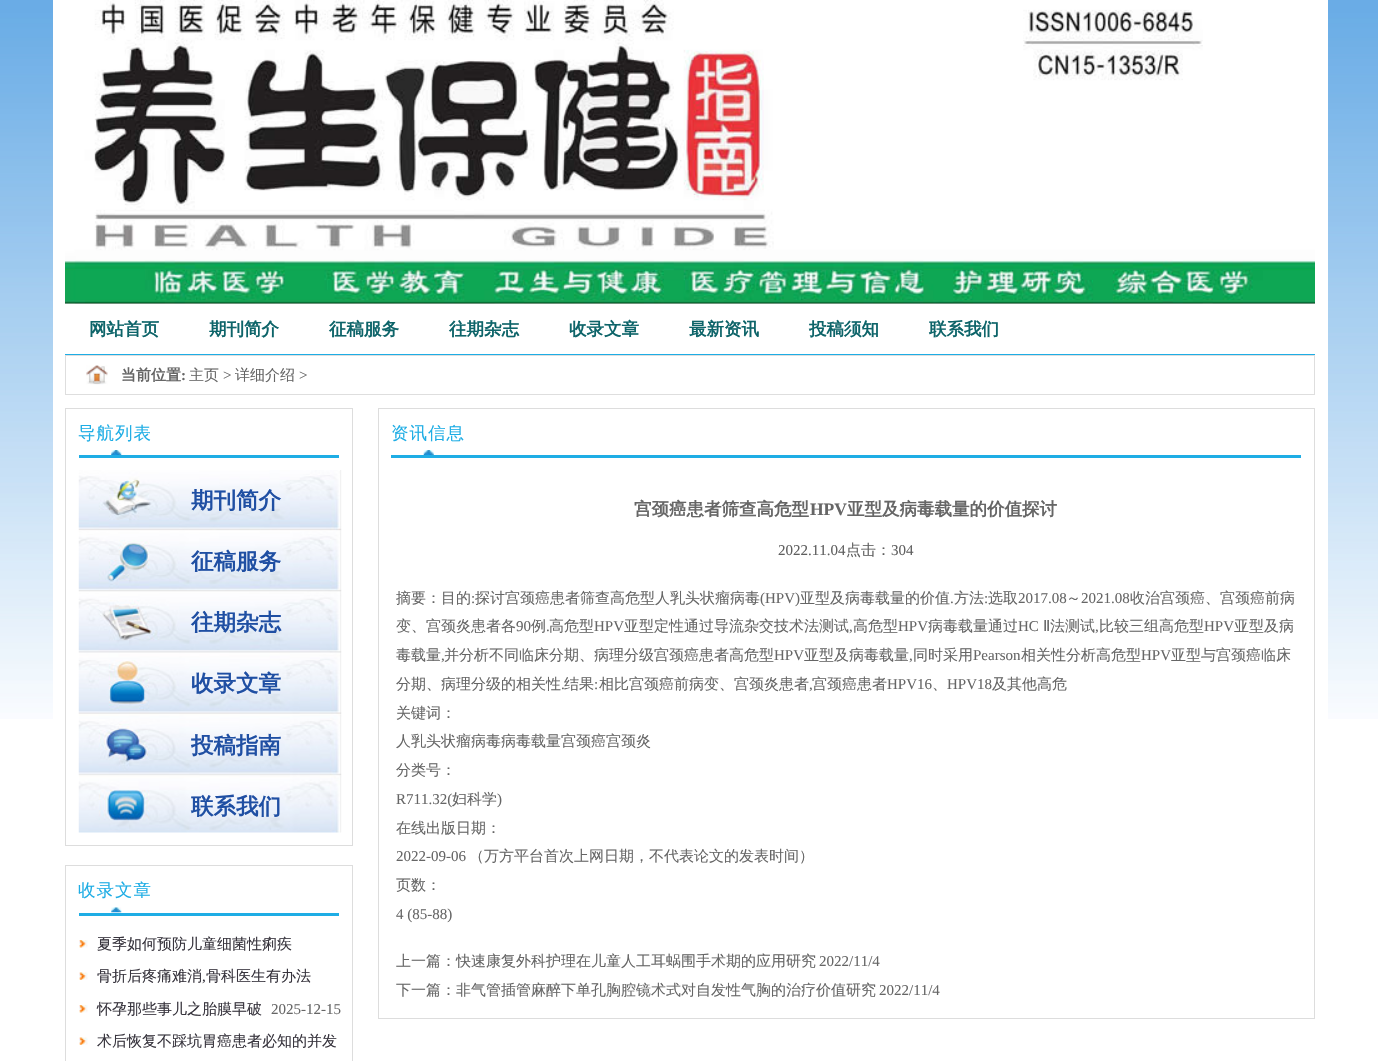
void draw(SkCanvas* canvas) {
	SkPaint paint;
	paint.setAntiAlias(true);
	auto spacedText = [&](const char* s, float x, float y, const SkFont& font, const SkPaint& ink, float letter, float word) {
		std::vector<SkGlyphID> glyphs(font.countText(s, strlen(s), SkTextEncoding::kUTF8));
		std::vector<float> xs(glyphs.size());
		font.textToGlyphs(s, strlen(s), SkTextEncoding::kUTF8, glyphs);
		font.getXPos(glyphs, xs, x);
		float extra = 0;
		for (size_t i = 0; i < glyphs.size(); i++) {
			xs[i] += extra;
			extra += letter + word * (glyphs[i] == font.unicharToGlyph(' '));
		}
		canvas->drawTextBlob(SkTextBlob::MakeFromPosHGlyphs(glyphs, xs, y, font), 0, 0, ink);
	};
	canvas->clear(0xffffffff);
	canvas->drawImageRect(SkImages::DeferredFromEncodedData(SkData::MakeFromFileName("img1.png")), SkRect::MakeXYWH(0, 0, 1378, 719), SkSamplingOptions());
	paint.setColor(0xffffffff);
	canvas->drawRect(SkRect::MakeXYWH(53, 0, 1275, 719), paint);
	canvas->drawImageRect(SkImages::DeferredFromEncodedData(SkData::MakeFromFileName("img2.png")), SkRect::MakeXYWH(65, 0, 1250, 304), SkSamplingOptions());
	paint.setColor(0xff1eade5);
	canvas->drawRect(SkRect::MakeXYWH(65, 354, 1250, 1), paint);
	SkFont f1(fontMgr->matchFamilyStyle("WenQuanYi Zen Hei", SkFontStyle::Bold()), 17.5);
	f1.setSubpixel(true);
	paint.setColor(0xff0d6469);
	canvas->drawString("网站首页", 89, 335, f1, paint);
	canvas->drawString("期刊简介", 209, 335, f1, paint);
	canvas->drawString("征稿服务", 329, 335, f1, paint);
	canvas->drawString("往期杂志", 449, 335, f1, paint);
	canvas->drawString("收录文章", 569, 335, f1, paint);
	canvas->drawString("最新资讯", 689, 335, f1, paint);
	canvas->drawString("投稿须知", 809, 335, f1, paint);
	canvas->drawString("联系我们", 929, 335, f1, paint);
	paint.setStroke(true);
	paint.setStrokeWidth(1);
	paint.setColor(0xffdedede);
	canvas->drawRect(SkRect::MakeXYWH(65.5, 355.5, 1249, 39), paint);
	canvas->drawImageRect(SkImages::DeferredFromEncodedData(SkData::MakeFromFileName("img3.png")), SkRect::MakeXYWH(86, 365, 22, 20), SkSamplingOptions());
	SkFont f2(fontMgr->matchFamilyStyle("WenQuanYi Zen Hei", SkFontStyle::Bold()), 15);
	f2.setSubpixel(true);
	paint.setStroke(false);
	paint.setColor(0xff666666);
	canvas->drawString("当前位置", 121, 380, f2, paint);
	SkFont f3(fontMgr->matchFamilyStyle("Liberation Serif", SkFontStyle::Bold()), 15);
	f3.setSubpixel(true);
	canvas->drawString(":", 181, 380, f3, paint);
	SkFont f4(fontMgr->matchFamilyStyle("WenQuanYi Zen Hei", SkFontStyle(500, SkFontStyle::kNormal_Width, SkFontStyle::kUpright_Slant)), 15);
	f4.setSubpixel(true);
	canvas->drawString("主页", 189, 380, f4, paint);
	SkFont f5(fontMgr->matchFamilyStyle("Liberation Serif", SkFontStyle::Normal()), 15);
	f5.setSubpixel(true);
	canvas->drawString(">", 223, 380, f5, paint);
	canvas->drawString("详细介绍", 235, 380, f4, paint);
	canvas->drawString(">", 299, 380, f5, paint);
	paint.setStroke(true);
	paint.setColor(0xffdddddd);
	canvas->drawRect(SkRect::MakeXYWH(65.5, 408.5, 287, 437), paint);
	paint.setStroke(false);
	paint.setColor(0xff1eade5);
	canvas->drawRect(SkRect::MakeXYWH(79, 455, 260, 3), paint);
	canvas->drawImageRect(SkImages::DeferredFromEncodedData(SkData::MakeFromFileName("img4.png")), SkRect::MakeXYWH(111, 450, 11, 5), SkSamplingOptions());
	SkFont f6(fontMgr->matchFamilyStyle("WenQuanYi Zen Hei", SkFontStyle(500, SkFontStyle::kNormal_Width, SkFontStyle::kUpright_Slant)), 17.5);
	f6.setSubpixel(true);
	spacedText("导航列表", 78, 439, f6, paint, 1, 0);
	canvas->drawImageRect(SkImages::DeferredFromEncodedData(SkData::MakeFromFileName("img5.png")), SkRect::MakeXYWH(78, 470, 264, 363), SkSamplingOptions());
	SkFont f7(fontMgr->matchFamilyStyle("WenQuanYi Zen Hei", SkFontStyle::Bold()), 22.5);
	f7.setSubpixel(true);
	paint.setColor(0xff1f4fa3);
	canvas->drawString("期刊简介", 191, 508, f7, paint);
	canvas->drawString("征稿服务", 191, 569, f7, paint);
	canvas->drawString("往期杂志", 191, 630, f7, paint);
	canvas->drawString("收录文章", 191, 691, f7, paint);
	canvas->save();
	canvas->clipRect(SkRect::MakeXYWH(191, 470, 162, 363));
	canvas->drawString("投稿指南", 191, 753, f7, paint);
	canvas->restore();
	canvas->drawString("联系我们", 191, 814, f7, paint);
	paint.setStroke(true);
	paint.setColor(0xffdddddd);
	canvas->drawRect(SkRect::MakeXYWH(65.5, 865.5, 287, 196), paint);
	paint.setStroke(false);
	paint.setColor(0xff1eade5);
	canvas->drawRect(SkRect::MakeXYWH(79, 913, 260, 3), paint);
	canvas->drawImageRect(SkImages::DeferredFromEncodedData(SkData::MakeFromFileName("img6.png")), SkRect::MakeXYWH(111, 907, 11, 6), SkSamplingOptions());
	spacedText("收录文章", 78, 896, f6, paint, 1, 0);
	canvas->drawImageRect(SkImages::DeferredFromEncodedData(SkData::MakeFromFileName("img7.png")), SkRect::MakeXYWH(79, 940, 9, 8), SkSamplingOptions());
	paint.setColor(0xff37343d);
	canvas->drawString("夏季如何预防儿童细菌性痢疾", 97, 949, f4, paint);
	canvas->drawImageRect(SkImages::DeferredFromEncodedData(SkData::MakeFromFileName("img8.png")), SkRect::MakeXYWH(79, 972, 9, 8), SkSamplingOptions());
	canvas->drawString("骨折后疼痛难消", 97, 981, f4, paint);
	canvas->drawString(",", 202, 981, f5, paint);
	canvas->drawString("骨科医生有办法", 206, 981, f4, paint);
	canvas->drawImageRect(SkImages::DeferredFromEncodedData(SkData::MakeFromFileName("img7.png")), SkRect::MakeXYWH(79, 1005, 9, 8), SkSamplingOptions());
	canvas->drawString("怀孕那些事儿之胎膜早破", 97, 1014, f4, paint);
	paint.setColor(0xff666666);
	canvas->drawString("2025-12-15", 271, 1014, f5, paint);
	canvas->drawImageRect(SkImages::DeferredFromEncodedData(SkData::MakeFromFileName("img8.png")), SkRect::MakeXYWH(79, 1037, 9, 8), SkSamplingOptions());
	paint.setColor(0xff37343d);
	canvas->drawString("术后恢复不踩坑胃癌患者必知的并发", 97, 1046, f4, paint);
	paint.setStroke(true);
	paint.setColor(0xffdddddd);
	canvas->drawRect(SkRect::MakeXYWH(378.5, 408.5, 936, 610), paint);
	paint.setStroke(false);
	paint.setColor(0xff1eade5);
	canvas->drawRect(SkRect::MakeXYWH(391, 455, 910, 3), paint);
	canvas->drawImageRect(SkImages::DeferredFromEncodedData(SkData::MakeFromFileName("img9.png")), SkRect::MakeXYWH(423, 450, 11, 5), SkSamplingOptions());
	spacedText("资讯信息", 391, 439, f6, paint, 1, 0);
	paint.setColor(0xff666666);
	canvas->drawString("宫颈癌患者筛查高危型", 634, 515, f1, paint);
	SkFont f8(fontMgr->matchFamilyStyle("Liberation Serif", SkFontStyle::Bold()), 17.5);
	f8.setSubpixel(true);
	canvas->drawString("HPV", 810, 515, f8, paint);
	canvas->drawString("亚型及病毒载量的价值探讨", 847, 515, f1, paint);
	paint.setColor(0xff5f5f5f);
	canvas->drawString("2022.11.04", 778, 555, f5, paint);
	canvas->drawString("点击：", 846, 555, f4, paint);
	canvas->drawString("304", 891, 555, f5, paint);
	paint.setColor(0xff666666);
	canvas->drawString("摘要：目的", 396, 603, f4, paint);
	canvas->drawString(":", 471, 603, f5, paint);
	canvas->drawString("探讨宫颈癌患者筛查高危型人乳头状瘤病毒", 475, 603, f4, paint);
	canvas->drawString("(HPV)", 760, 603, f5, paint);
	canvas->drawString("亚型及病毒载量的价值", 800, 603, f4, paint);
	canvas->drawString("方法", 954, 603, f4, paint);
	canvas->drawString(":", 984, 603, f5, paint);
	canvas->drawString("选取", 988, 603, f4, paint);
	canvas->drawString("2017.08", 1018, 603, f5, paint);
	canvas->drawString("～", 1066, 603, f4, paint);
	canvas->drawString("2021.08", 1081, 603, f5, paint);
	canvas->drawString("收治宫颈癌、宫颈癌前病", 1130, 603, f4, paint);
	canvas->drawString(".", 950, 603, f5, paint);
	canvas->drawString("变、宫颈炎患者各", 396, 631, f4, paint);
	canvas->drawString("90", 516, 631, f5, paint);
	canvas->drawString("例", 531, 631, f4, paint);
	canvas->drawString(".", 546, 631, f5, paint);
	canvas->drawString("高危型", 549, 631, f4, paint);
	canvas->drawString("HPV", 594, 631, f5, paint);
	canvas->drawString("亚型定性通过导流杂交技术法测试", 624, 631, f4, paint);
	canvas->drawString(",", 849, 631, f5, paint);
	canvas->drawString("高危型", 853, 631, f4, paint);
	canvas->drawString("HPV", 898, 631, f5, paint);
	canvas->drawString("病毒载量通过", 928, 631, f4, paint);
	canvas->drawString("HC", 1018, 631, f5, paint);
	SkFont f9(fontMgr->matchFamilyStyle("DejaVu Sans", SkFontStyle::Normal()), 15);
	f9.setSubpixel(true);
	canvas->drawString("Ⅱ", 1043, 631, f9, paint);
	canvas->drawString("法测试", 1050, 631, f4, paint);
	canvas->drawString(",", 1095, 631, f5, paint);
	canvas->drawString("比较三组高危型", 1099, 631, f4, paint);
	canvas->drawString("HPV", 1204, 631, f5, paint);
	canvas->drawString("亚型及病", 1234, 631, f4, paint);
	canvas->drawString("毒载量", 396, 660, f4, paint);
	canvas->drawString(",", 441, 660, f5, paint);
	canvas->drawString("并分析不同临床分期、病理分级宫颈癌患者高危型", 444, 660, f4, paint);
	canvas->drawString("HPV", 774, 660, f5, paint);
	canvas->drawString("亚型及病毒载量", 804, 660, f4, paint);
	canvas->drawString(",", 909, 660, f5, paint);
	canvas->drawString("同时采用", 913, 660, f4, paint);
	canvas->drawString("Pearson", 973, 660, f5, paint);
	canvas->drawString("相关性分析高危型", 1021, 660, f4, paint);
	canvas->drawString("HPV", 1141, 660, f5, paint);
	canvas->drawString("亚型与宫颈癌临床", 1171, 660, f4, paint);
	canvas->drawString("分期、病理分级的相关性", 396, 689, f4, paint);
	canvas->drawString(".", 561, 689, f5, paint);
	canvas->drawString("结果", 564, 689, f4, paint);
	canvas->drawString(":", 594, 689, f5, paint);
	canvas->drawString("相比宫颈癌前病变、宫颈炎患者", 599, 689, f4, paint);
	canvas->drawString(",", 809, 689, f5, paint);
	canvas->drawString("宫颈癌患者", 812, 689, f4, paint);
	canvas->drawString("HPV16", 887, 689, f5, paint);
	canvas->drawString("、", 932, 689, f4, paint);
	canvas->drawString("HPV18", 947, 689, f5, paint);
	canvas->drawString("及其他高危", 992, 689, f4, paint);
	canvas->drawString("关键词：", 396, 718, f4, paint);
	canvas->drawString("人乳头状瘤病毒病毒载量宫颈癌宫颈炎", 396, 746, f4, paint);
	canvas->drawString("分类号：", 396, 775, f4, paint);
	canvas->drawString("R711.32(", 396, 804, f5, paint);
	canvas->drawString("妇科学", 452, 804, f4, paint);
	canvas->drawString(")", 497, 804, f5, paint);
	canvas->drawString("在线出版日期：", 396, 833, f4, paint);
	canvas->drawString("2022-09-06", 396, 861, f5, paint);
	canvas->drawString("（万方平台首次上网日期，不代表论文的发表时间）", 469, 861, f4, paint);
	canvas->drawString("页数：", 396, 890, f4, paint);
	canvas->drawString("4 (85-88)", 396, 919, f5, paint);
	canvas->drawString("上一篇：快速康复外科护理在儿童人工耳蜗围手术期的应用研究", 396, 966, f4, paint);
	canvas->drawString("2022/11/4", 819, 966, f5, paint);
	canvas->drawString("下一篇：非气管插管麻醉下单孔胸腔镜术式对自发性气胸的治疗价值研究", 396, 995, f4, paint);
	canvas->drawString("2022/11/4", 879, 995, f5, paint);
}
